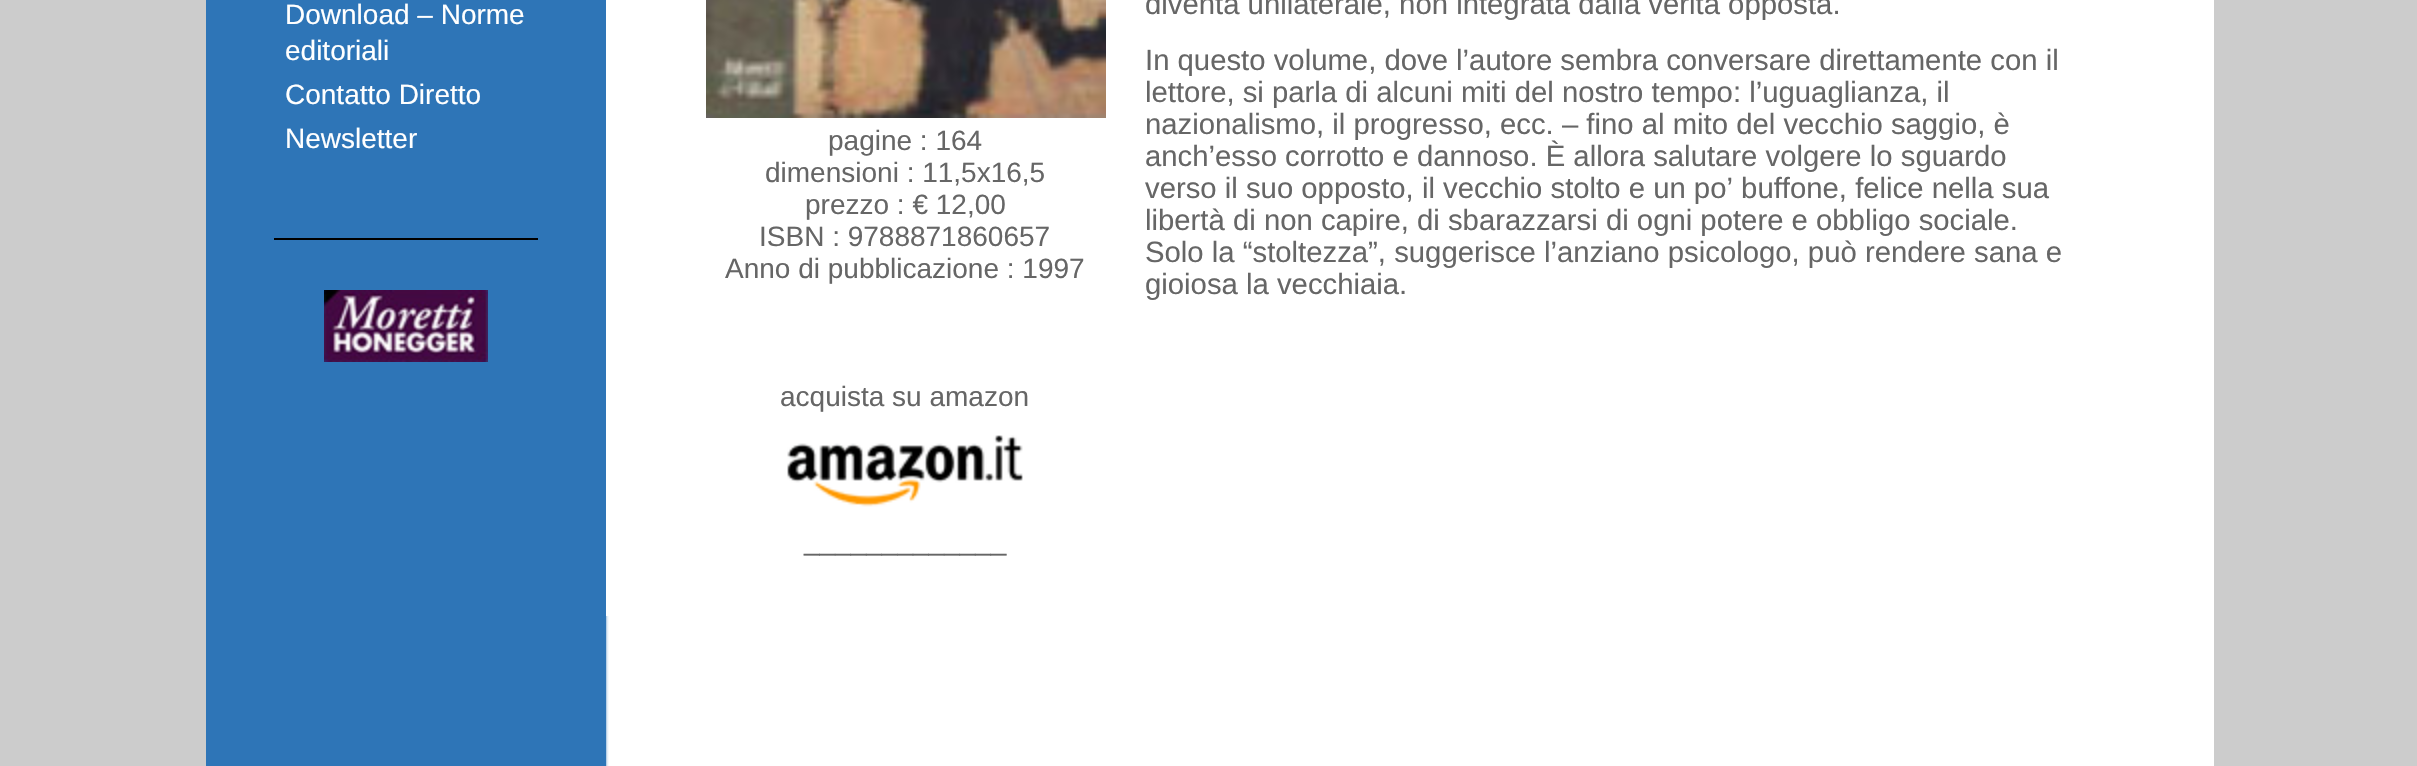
void draw(SkCanvas* canvas) {
	SkPaint paint;
	paint.setAntiAlias(true);
	canvas->clear(0xffcccccc);
	paint.setColor(0xffffffff);
	canvas->drawRect(SkRect::MakeXYWH(609, 616, 1605, 150), paint);
	canvas->drawImageRect(SkImages::DeferredFromEncodedData(SkData::MakeFromFileName("img1.png")), SkRect::MakeXYWH(606, 616, 3, 150), SkSamplingOptions());
	paint.setColor(0xff2e75b7);
	canvas->drawRect(SkRect::MakeXYWH(206, 0, 400, 766), paint);
	SkFont f1(fontMgr->matchFamilyStyle("Liberation Sans", SkFontStyle::Normal()), 28);
	f1.setSubpixel(true);
	paint.setColor(0xffffffff);
	canvas->drawString("Download – Norme", 285, 24, f1, paint);
	canvas->drawString("editoriali", 285, 60, f1, paint);
	canvas->drawString("Contatto Diretto", 285, 104, f1, paint);
	canvas->drawString("Newsletter", 285, 148, f1, paint);
	paint.setColor(0xff000000);
	canvas->drawRect(SkRect::MakeXYWH(274, 238, 264, 2), paint);
	canvas->drawImageRect(SkImages::DeferredFromEncodedData(SkData::MakeFromFileName("img2.png")), SkRect::MakeXYWH(324, 290, 164, 72), SkSamplingOptions());
	paint.setColor(0xffffffff);
	canvas->drawRect(SkRect::MakeXYWH(606, 0, 1608, 616), paint);
	canvas->drawImageRect(SkImages::DeferredFromEncodedData(SkData::MakeFromFileName("img3.png")), SkRect::MakeXYWH(706, 0, 400, 118), SkSamplingOptions());
	paint.setColor(0xff666666);
	canvas->drawString("pagine : 164", 828, 150, f1, paint);
	canvas->drawString("dimensioni : 11,5x16,5", 765, 182, f1, paint);
	canvas->drawString("prezzo : € 12,00", 805, 214, f1, paint);
	canvas->drawString("ISBN : 9788871860657", 759, 246, f1, paint);
	canvas->drawString("Anno di pubblicazione : 1997", 725, 278, f1, paint);
	canvas->drawString("acquista su amazon", 780, 406, f1, paint);
	canvas->drawImageRect(SkImages::DeferredFromEncodedData(SkData::MakeFromFileName("img4.png")), SkRect::MakeXYWH(787, 435, 236, 72), SkSamplingOptions());
	canvas->drawString("_____________", 804, 550, f1, paint);
	SkFont f2(fontMgr->matchFamilyStyle("Liberation Sans", SkFontStyle::Normal()), 29.3);
	f2.setSubpixel(true);
	canvas->drawString("diventa unilaterale, non integrata dalla verità opposta.", 1145, 14, f2, paint);
	canvas->drawString("In questo volume, dove l’autore sembra conversare direttamente con il", 1145, 70, f2, paint);
	canvas->drawString("lettore, si parla di alcuni miti del nostro tempo: l’uguaglianza, il", 1145, 102, f2, paint);
	canvas->drawString("nazionalismo, il progresso, ecc. – fino al mito del vecchio saggio, è", 1145, 134, f2, paint);
	canvas->drawString("anch’esso corrotto e dannoso. È allora salutare volgere lo sguardo", 1145, 166, f2, paint);
	canvas->drawString("verso il suo opposto, il vecchio stolto e un po’ buffone, felice nella sua", 1145, 198, f2, paint);
	canvas->drawString("libertà di non capire, di sbarazzarsi di ogni potere e obbligo sociale.", 1145, 230, f2, paint);
	canvas->drawString("Solo la “stoltezza”, suggerisce l’anziano psicologo, può rendere sana e", 1145, 262, f2, paint);
	canvas->drawString("gioiosa la vecchiaia.", 1145, 294, f2, paint);
}
